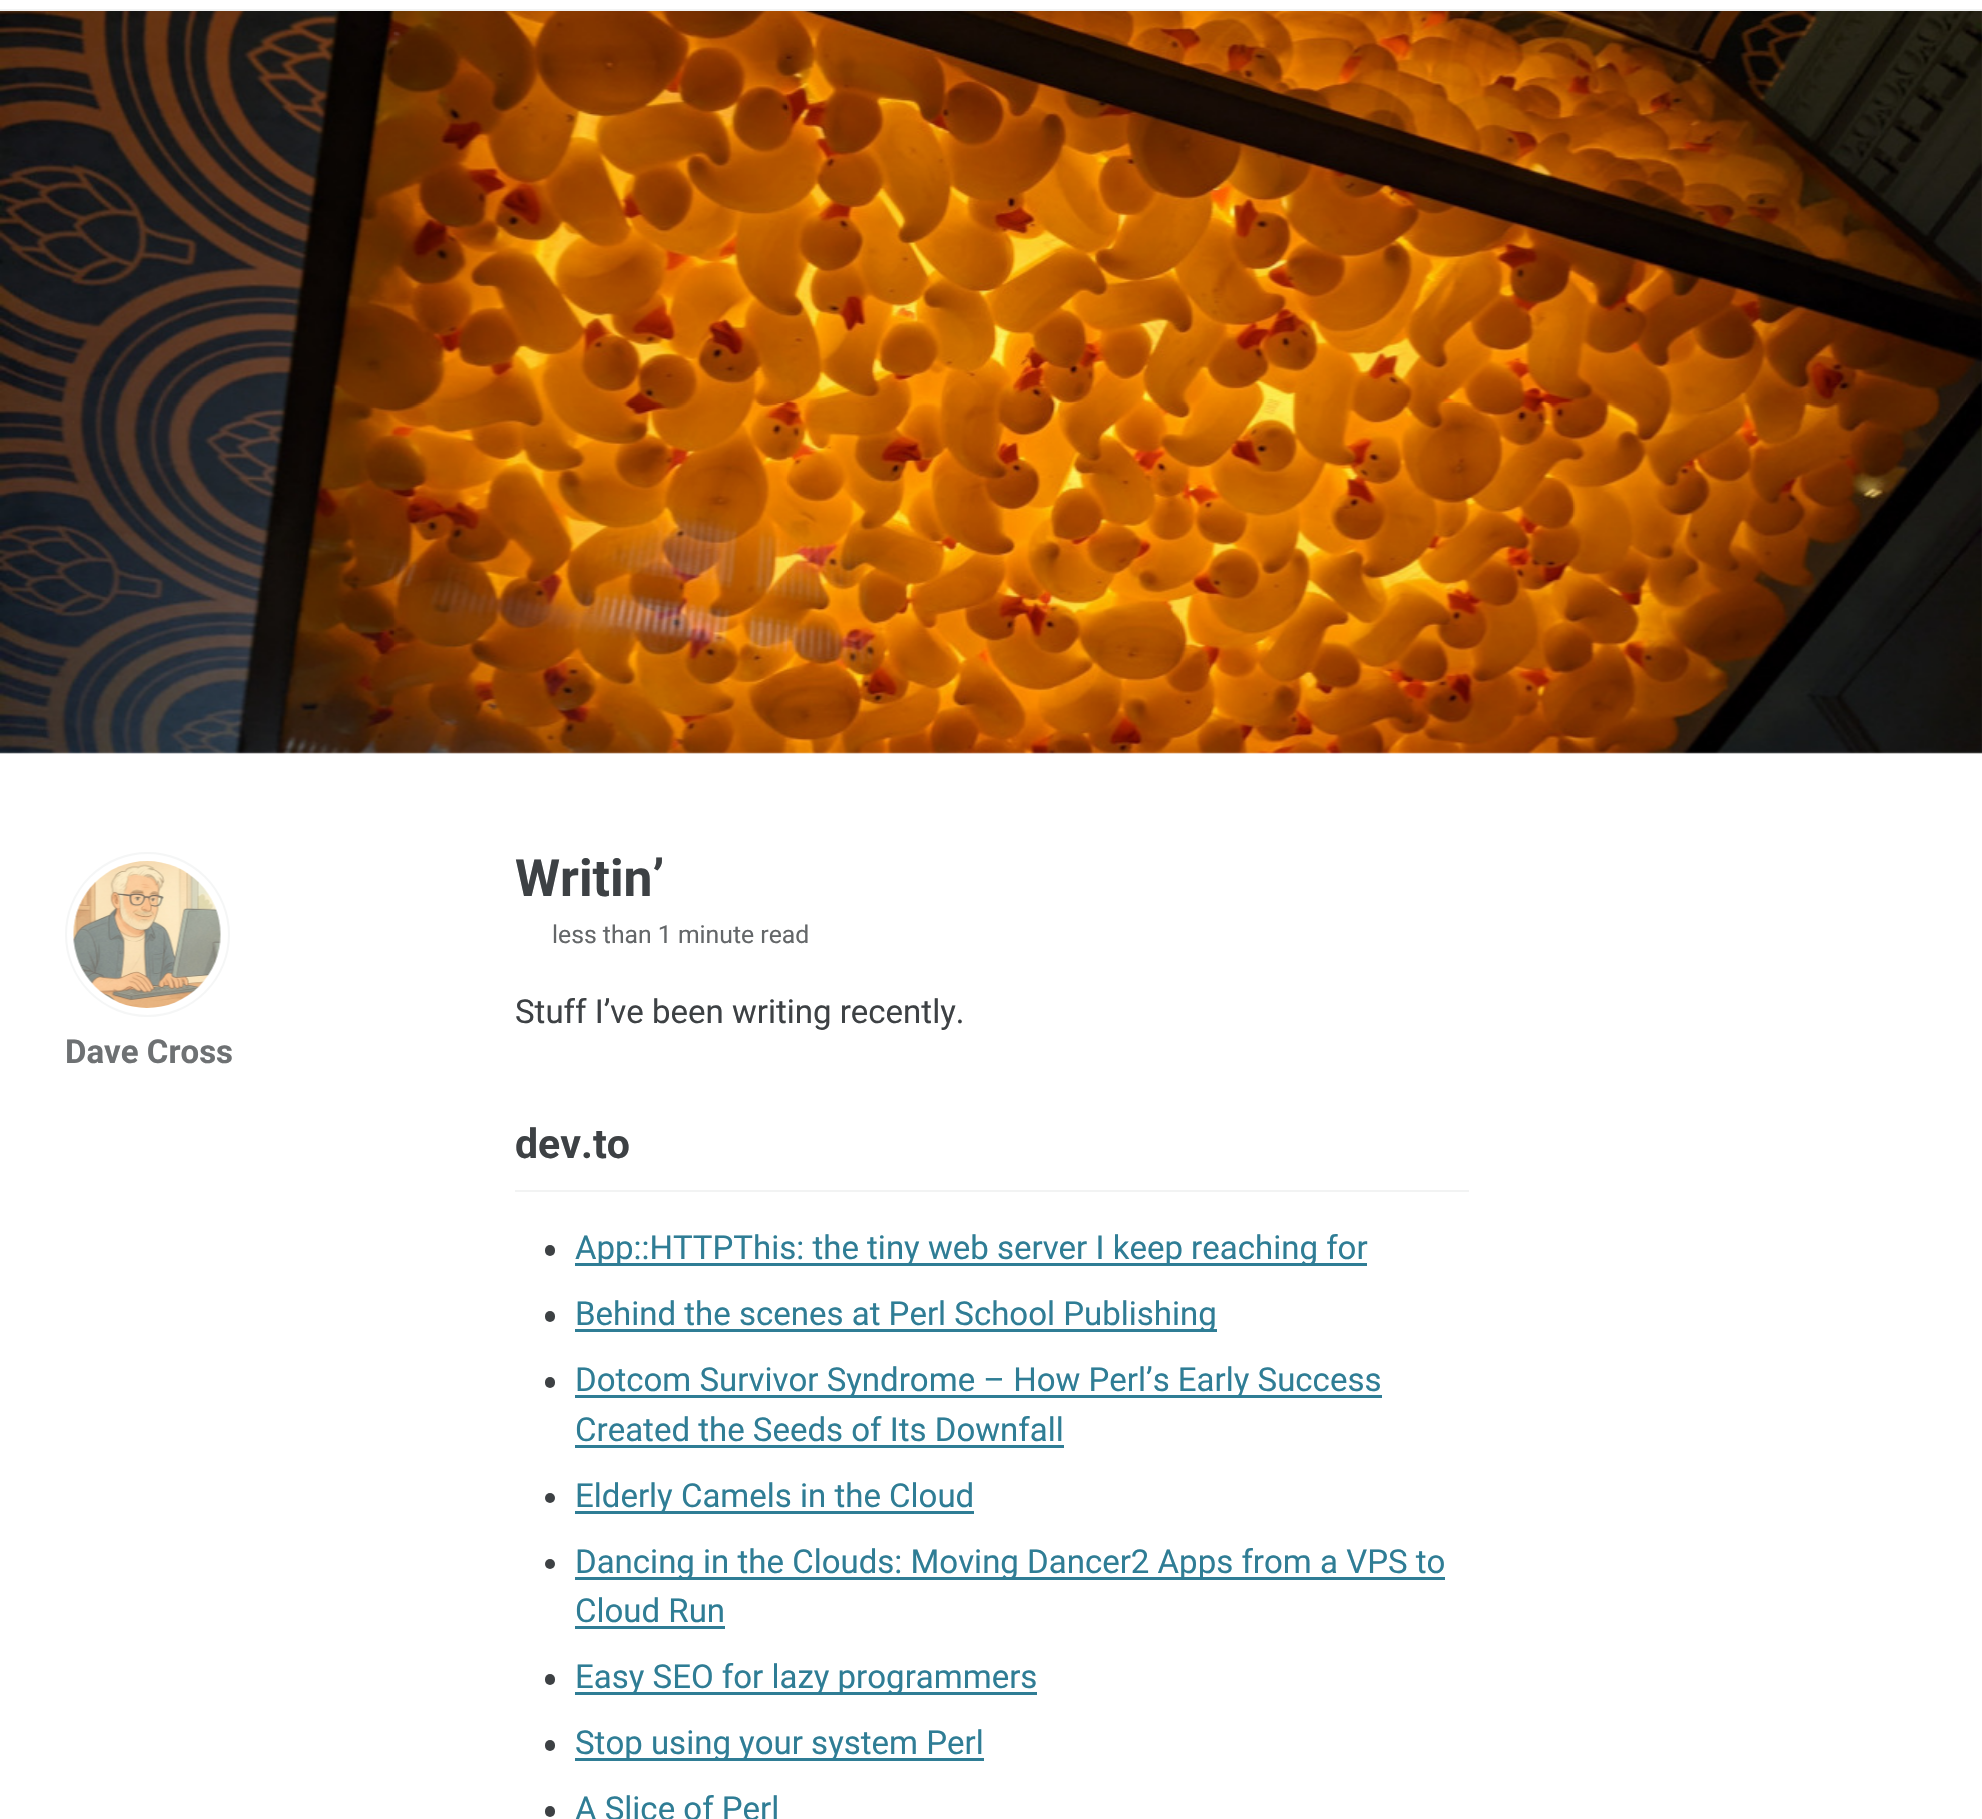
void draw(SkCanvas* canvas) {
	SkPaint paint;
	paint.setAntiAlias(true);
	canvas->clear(0xffffffff);
	paint.setColor(0xfff2f3f3);
	canvas->drawRect(SkRect::MakeXYWH(0, 9, 1982, 2), paint);
	canvas->drawImageRect(SkImages::DeferredFromEncodedData(SkData::MakeFromFileName("img1.png")), SkRect::MakeXYWH(0, 11, 1982, 743), SkSamplingOptions());
	paint.setStroke(true);
	paint.setStrokeWidth(2);
	paint.setColor(0xfff5f6f6);
	canvas->drawCircle(147.5, 934.5, 81.5, paint);
	canvas->drawImageRect(SkImages::DeferredFromEncodedData(SkData::MakeFromFileName("img2.png")), SkRect::MakeXYWH(73, 861, 148, 147), SkSamplingOptions());
	SkFont f1(fontMgr->matchFamilyStyle("Roboto", SkFontStyle::Bold()), 33);
	f1.setSubpixel(true);
	paint.setStroke(false);
	paint.setColor(0xff6e7173);
	canvas->drawString("Dave Cross", 65, 1063, f1, paint);
	SkFont f2(fontMgr->matchFamilyStyle("Roboto", SkFontStyle::Bold()), 51.5);
	f2.setSubpixel(true);
	paint.setColor(0xff3d4144);
	canvas->drawString("Writin’", 515, 896, f2, paint);
	SkFont f3(fontMgr->matchFamilyStyle("Roboto", SkFontStyle::Normal()), 24.75);
	f3.setSubpixel(true);
	paint.setColor(0xff646769);
	canvas->drawString("less than 1 minute read", 552, 943, f3, paint);
	SkFont f4(fontMgr->matchFamilyStyle("Roboto", SkFontStyle::Normal()), 33);
	f4.setSubpixel(true);
	paint.setColor(0xff3d4144);
	canvas->drawString("Stuff I’ve been writing recently.", 515, 1023, f4, paint);
	paint.setColor(0xfff2f3f3);
	canvas->drawRect(SkRect::MakeXYWH(515, 1190, 954, 2), paint);
	SkFont f5(fontMgr->matchFamilyStyle("Roboto", SkFontStyle::Bold()), 41);
	f5.setSubpixel(true);
	paint.setColor(0xff3d4144);
	canvas->drawString("dev.to", 515, 1158, f5, paint);
	canvas->drawRoundRect(SkRect::MakeXYWH(545, 1245, 10, 11), 5, 5, paint);
	paint.setColor(0xff2f7d95);
	canvas->drawRect(SkRect::MakeXYWH(575, 1263, 792, 3), paint);
	canvas->drawString("App::HTTPThis: the tiny web server I keep reaching for", 575, 1259, f4, paint);
	paint.setColor(0xff3d4144);
	canvas->drawRoundRect(SkRect::MakeXYWH(545, 1311, 10, 11), 5, 5, paint);
	paint.setColor(0xff2f7d95);
	canvas->drawRect(SkRect::MakeXYWH(575, 1329, 642, 3), paint);
	canvas->drawString("Behind the scenes at Perl School Publishing", 575, 1325, f4, paint);
	paint.setColor(0xff3d4144);
	canvas->drawRoundRect(SkRect::MakeXYWH(545, 1377, 10, 11), 5, 5, paint);
	paint.setColor(0xff2f7d95);
	canvas->drawRect(SkRect::MakeXYWH(575, 1395, 807, 3), paint);
	canvas->drawString("Dotcom Survivor Syndrome – How Perl’s Early Success", 575, 1391, f4, paint);
	canvas->drawString("Created the Seeds of Its Downfall", 575, 1441, f4, paint);
	canvas->drawRect(SkRect::MakeXYWH(575, 1445, 489, 3), paint);
	paint.setColor(0xff3d4144);
	canvas->drawCircle(550, 1498, 5, paint);
	paint.setColor(0xff2f7d95);
	canvas->drawRect(SkRect::MakeXYWH(575, 1511, 399, 3), paint);
	canvas->drawString("Elderly Camels in the Cloud", 575, 1507, f4, paint);
	paint.setColor(0xff3d4144);
	canvas->drawCircle(550, 1564, 5, paint);
	paint.setColor(0xff2f7d95);
	canvas->drawRect(SkRect::MakeXYWH(575, 1577, 870, 3), paint);
	canvas->drawString("Dancing in the Clouds: Moving Dancer2 Apps from a VPS to", 575, 1573, f4, paint);
	canvas->drawString("Cloud Run", 575, 1622, f4, paint);
	canvas->drawRect(SkRect::MakeXYWH(575, 1626, 150, 3), paint);
	paint.setColor(0xff3d4144);
	canvas->drawRoundRect(SkRect::MakeXYWH(545, 1674, 10, 11), 5, 5, paint);
	paint.setColor(0xff2f7d95);
	canvas->drawRect(SkRect::MakeXYWH(575, 1692, 462, 3), paint);
	canvas->drawString("Easy SEO for lazy programmers", 575, 1688, f4, paint);
	paint.setColor(0xff3d4144);
	canvas->drawRoundRect(SkRect::MakeXYWH(545, 1740, 10, 11), 5, 5, paint);
	paint.setColor(0xff2f7d95);
	canvas->drawRect(SkRect::MakeXYWH(575, 1758, 409, 3), paint);
	canvas->drawString("Stop using your system Perl", 575, 1754, f4, paint);
	paint.setColor(0xff3d4144);
	canvas->drawRoundRect(SkRect::MakeXYWH(545, 1806, 10, 11), 5, 5, paint);
	paint.setColor(0xff2f7d95);
	canvas->drawString("A Slice of Perl", 575, 1820, f4, paint);
}
